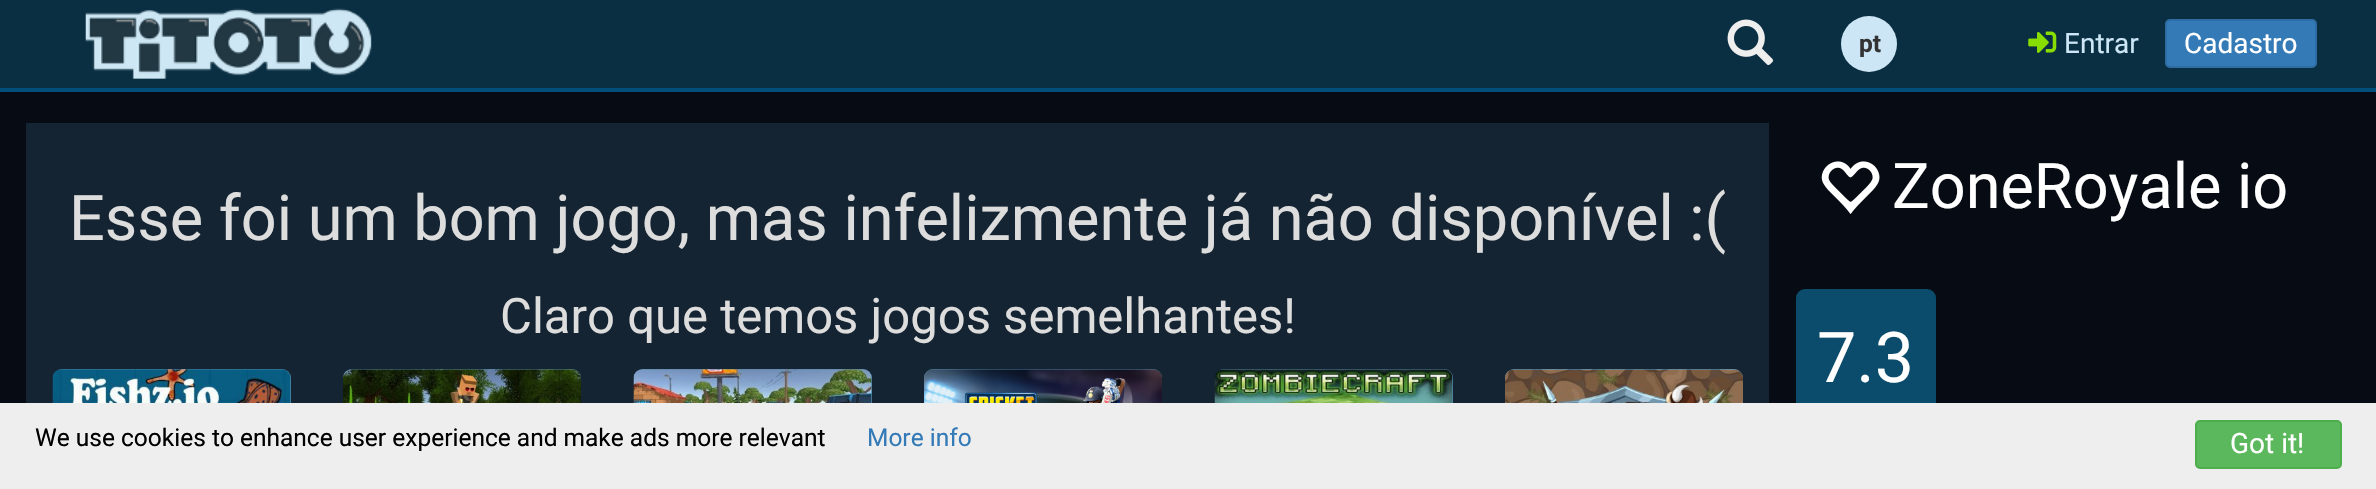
void draw(SkCanvas* canvas) {
	SkPaint paint;
	paint.setAntiAlias(true);
	canvas->clear(0xff070c14);
	paint.setColor(0xff0b2f42);
	canvas->drawRect(SkRect::MakeXYWH(0, 0, 2376, 88), paint);
	paint.setColor(0xff024f7b);
	canvas->drawRect(SkRect::MakeXYWH(0, 88, 2376, 4), paint);
	canvas->drawImageRect(SkImages::DeferredFromEncodedData(SkData::MakeFromFileName("img1.png")), SkRect::MakeXYWH(85, 8, 287, 71), SkSamplingOptions());
	canvas->drawImageRect(SkImages::DeferredFromEncodedData(SkData::MakeFromFileName("img2.png")), SkRect::MakeXYWH(1727, 19, 47, 46), SkSamplingOptions());
	paint.setColor(0xffcce6f5);
	canvas->drawCircle(1869, 44, 28, paint);
	SkFont f1(fontMgr->matchFamilyStyle("Roboto", SkFontStyle::Bold()), 24.5);
	f1.setSubpixel(true);
	paint.setColor(0xff333333);
	canvas->drawString("pt", 1859, 52, f1, paint);
	canvas->drawImageRect(SkImages::DeferredFromEncodedData(SkData::MakeFromFileName("img3.png")), SkRect::MakeXYWH(2028, 31, 29, 22), SkSamplingOptions());
	SkFont f2(fontMgr->matchFamilyStyle("Roboto", SkFontStyle::Normal()), 28);
	f2.setSubpixel(true);
	paint.setColor(0xffcce6f5);
	canvas->drawString("Entrar", 2064, 53, f2, paint);
	paint.setColor(0xff337ab7);
	canvas->drawRoundRect(SkRect::MakeXYWH(2166, 20, 150, 47), 4, 4, paint);
	paint.setStroke(true);
	paint.setStrokeWidth(2);
	paint.setColor(0xff2e6da4);
	canvas->drawRoundRect(SkRect::MakeXYWH(2166, 20, 150, 47), 4, 4, paint);
	paint.setStroke(false);
	paint.setColor(0xffffffff);
	canvas->drawString("Cadastro", 2184, 53, f2, paint);
	paint.setColor(0xff152432);
	canvas->drawRect(SkRect::MakeXYWH(26, 123, 1743, 280), paint);
	SkFont f3(fontMgr->matchFamilyStyle("Roboto", SkFontStyle::Normal()), 63);
	f3.setSubpixel(true);
	paint.setColor(0xffdddddd);
	canvas->drawString("Esse foi um bom jogo, mas infelizmente já não disponível :(", 69, 240, f3, paint);
	SkFont f4(fontMgr->matchFamilyStyle("Roboto", SkFontStyle::Normal()), 49);
	f4.setSubpixel(true);
	canvas->drawString("Claro que temos jogos semelhantes!", 500, 333, f4, paint);
	paint.setColor(0xff4f89ab);
	canvas->drawRoundRect(SkRect::MakeXYWH(53, 369, 238, 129), 9, 9, paint);
	canvas->drawImageRect(SkImages::DeferredFromEncodedData(SkData::MakeFromFileName("img4.png")), SkRect::MakeXYWH(52, 369, 239, 34), SkSamplingOptions());
	canvas->drawRoundRect(SkRect::MakeXYWH(343, 369, 238, 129), 9, 9, paint);
	canvas->drawImageRect(SkImages::DeferredFromEncodedData(SkData::MakeFromFileName("img5.png")), SkRect::MakeXYWH(343, 369, 238, 34), SkSamplingOptions());
	canvas->drawRoundRect(SkRect::MakeXYWH(634, 369, 238, 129), 9, 9, paint);
	canvas->drawImageRect(SkImages::DeferredFromEncodedData(SkData::MakeFromFileName("img6.png")), SkRect::MakeXYWH(633, 369, 239, 34), SkSamplingOptions());
	canvas->drawRoundRect(SkRect::MakeXYWH(924, 369, 238, 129), 9, 9, paint);
	canvas->drawImageRect(SkImages::DeferredFromEncodedData(SkData::MakeFromFileName("img7.png")), SkRect::MakeXYWH(924, 369, 238, 34), SkSamplingOptions());
	canvas->drawRoundRect(SkRect::MakeXYWH(1215, 369, 238, 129), 9, 9, paint);
	canvas->drawImageRect(SkImages::DeferredFromEncodedData(SkData::MakeFromFileName("img8.png")), SkRect::MakeXYWH(1214, 369, 239, 34), SkSamplingOptions());
	paint.setColor(0xff36a0e4);
	canvas->drawRoundRect(SkRect::MakeXYWH(1505, 369, 238, 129), 9, 9, paint);
	canvas->drawImageRect(SkImages::DeferredFromEncodedData(SkData::MakeFromFileName("img9.png")), SkRect::MakeXYWH(1505, 369, 238, 34), SkSamplingOptions());
	canvas->drawImageRect(SkImages::DeferredFromEncodedData(SkData::MakeFromFileName("img10.png")), SkRect::MakeXYWH(1821, 161, 59, 53), SkSamplingOptions());
	paint.setColor(0xffffffff);
	canvas->drawString("ZoneRoyale io", 1892, 208, f3, paint);
	paint.setColor(0xff0b4b6b);
	canvas->drawRoundRect(SkRect::MakeXYWH(1796, 289, 140, 140), 9, 9, paint);
	SkFont f5(fontMgr->matchFamilyStyle("Roboto", SkFontStyle::Normal()), 70);
	f5.setSubpixel(true);
	paint.setColor(0xffffffff);
	canvas->drawString("7.3", 1817, 382, f5, paint);
	paint.setColor(0xffeeeeee);
	canvas->drawRect(SkRect::MakeXYWH(0, 403, 2376, 86), paint);
	SkFont f6(fontMgr->matchFamilyStyle("Roboto", SkFontStyle::Normal()), 24.5);
	f6.setSubpixel(true);
	paint.setColor(0xff000000);
	canvas->drawString("We use cookies to enhance user experience and make ads more relevant", 35, 446, f6, paint);
	paint.setColor(0xff337ab7);
	canvas->drawString("More info", 867, 446, f6, paint);
	paint.setColor(0xff5cb85c);
	canvas->drawRoundRect(SkRect::MakeXYWH(2196, 421, 145, 47), 4, 4, paint);
	paint.setStroke(true);
	paint.setColor(0xff4cae4c);
	canvas->drawRoundRect(SkRect::MakeXYWH(2196, 421, 145, 47), 4, 4, paint);
	paint.setStroke(false);
	paint.setColor(0xffffffff);
	canvas->drawString("Got it!", 2230, 453, f2, paint);
}
